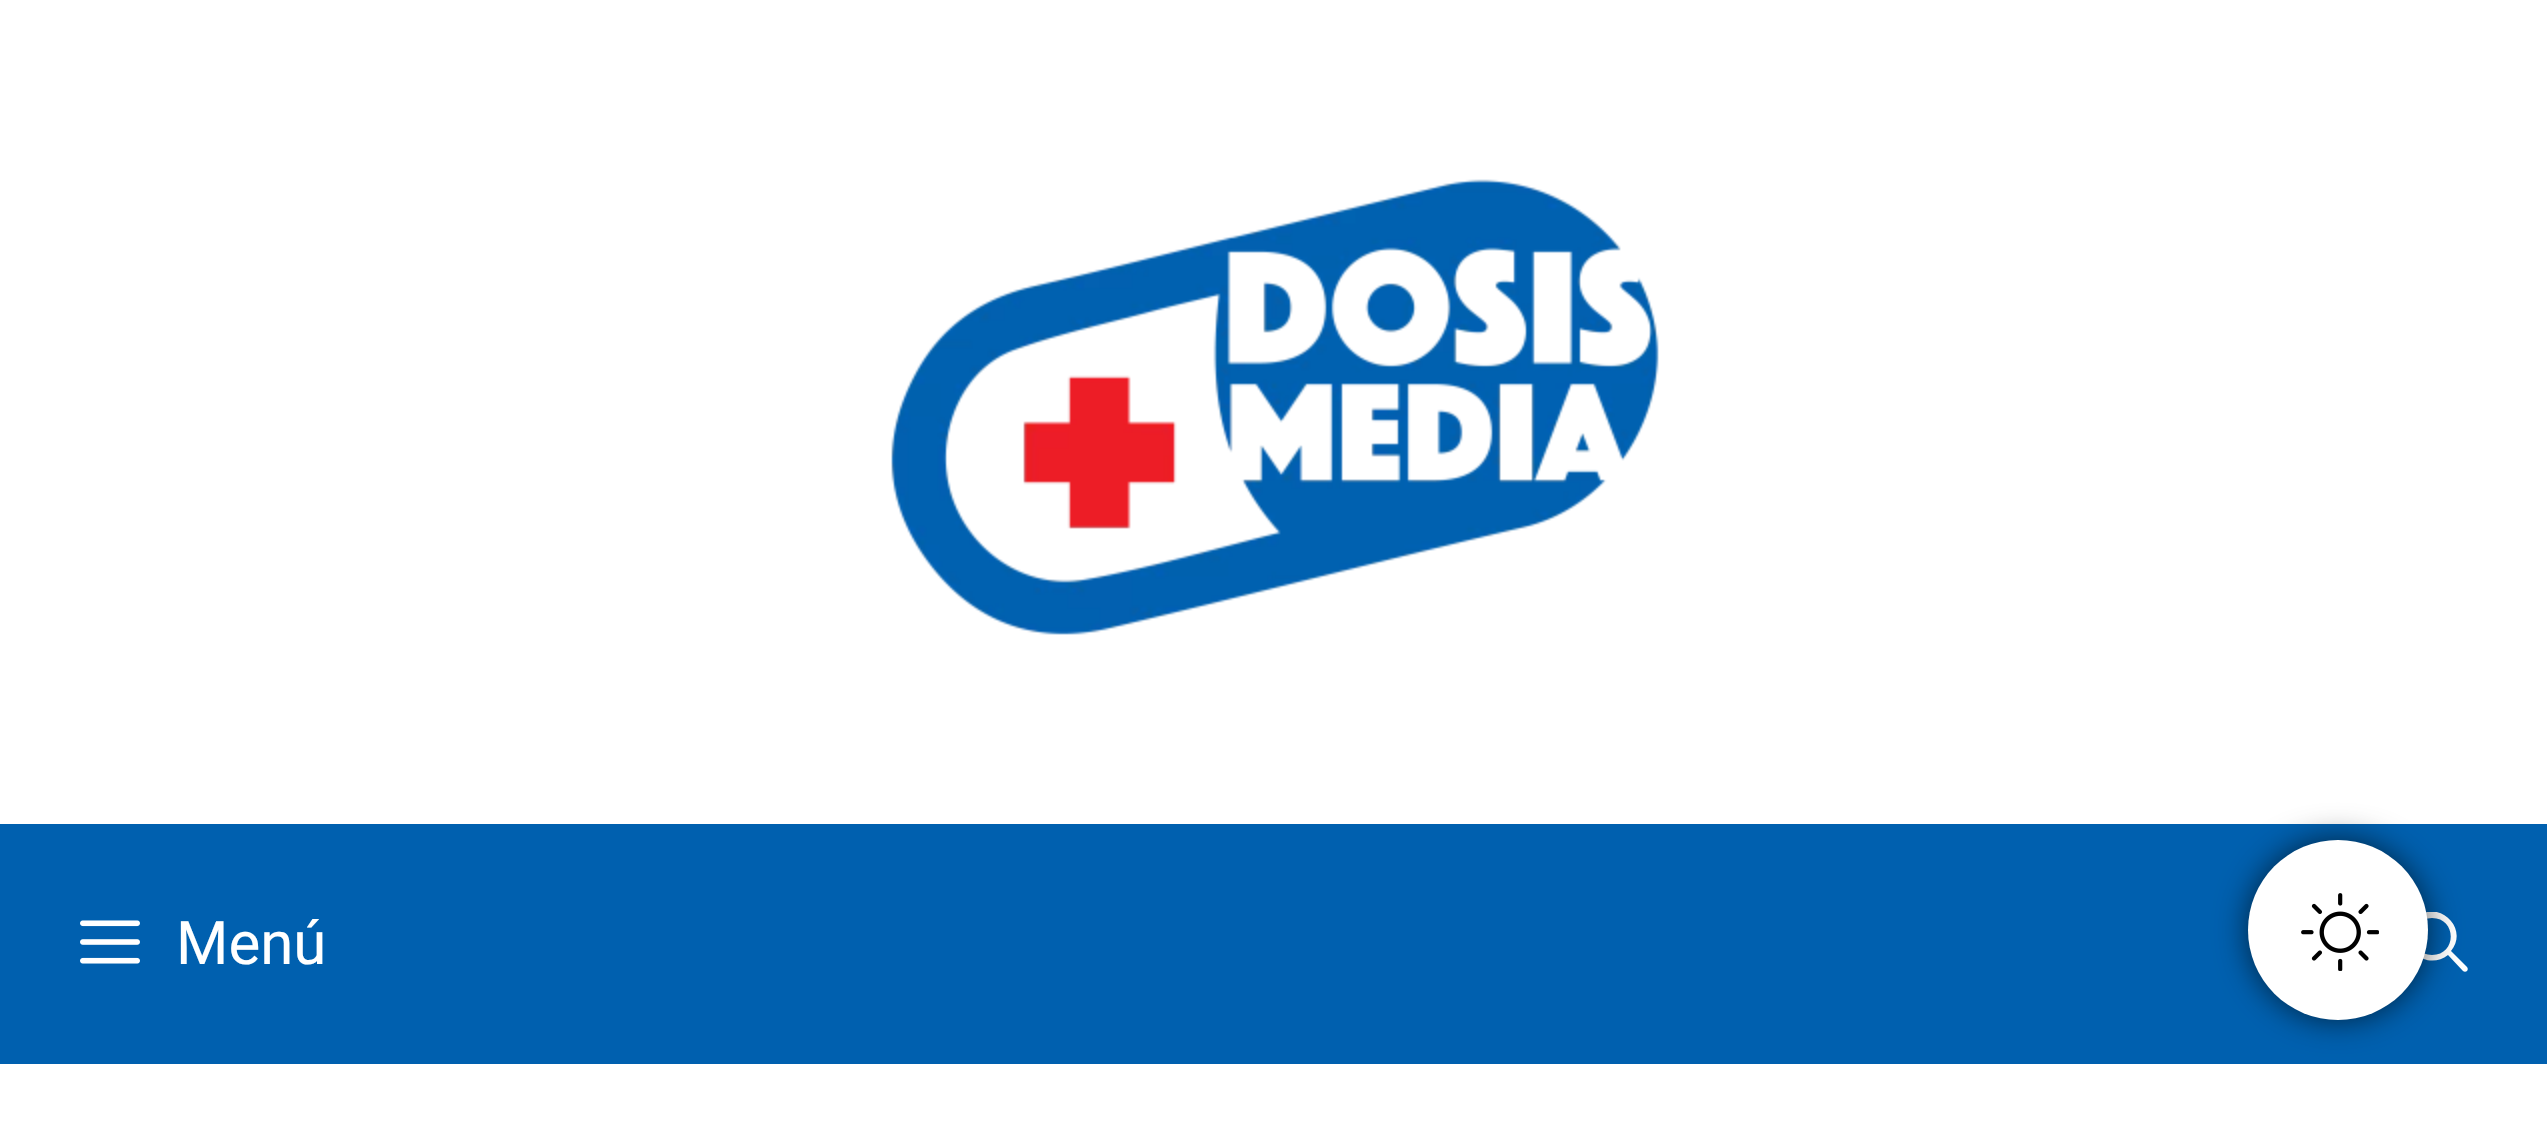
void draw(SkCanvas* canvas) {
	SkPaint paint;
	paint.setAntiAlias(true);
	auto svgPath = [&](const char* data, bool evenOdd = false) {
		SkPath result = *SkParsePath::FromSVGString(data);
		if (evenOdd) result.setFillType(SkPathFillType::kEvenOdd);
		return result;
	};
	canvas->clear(0xff0060af);
	paint.setColor(0xffffffff);
	canvas->drawRect(SkRect::MakeXYWH(0, 0, 2547, 824), paint);
	canvas->drawImageRect(SkImages::DeferredFromEncodedData(SkData::MakeFromFileName("img1.png")), SkRect::MakeXYWH(891, 179, 768, 456), SkSamplingOptions());
	canvas->drawImageRect(SkImages::DeferredFromEncodedData(SkData::MakeFromFileName("img2.png")), SkRect::MakeXYWH(80, 920, 60, 44), SkSamplingOptions());
	SkFont f1(fontMgr->matchFamilyStyle("Roboto", SkFontStyle::Normal()), 60);
	f1.setSubpixel(true);
	canvas->drawString("Menú", 176, 964, f1, paint);
	canvas->save();
	canvas->clipRect(SkRect::MakeXYWH(2408, 912, 60, 60));
	canvas->drawPath(svgPath("M2432 918C2408 918 2408 955 2432 955C2457 955 2457 918 2432 918ZM2408 936C2408 930 2411 924 2415 919C2437 897 2470 928 2451 951L2467 967C2468 968 2468 970 2467 971C2466 972 2464 972 2463 971L2448 955C2432 968 2408 957 2408 936Z", true), paint);
	canvas->restore();
	canvas->drawRect(SkRect::MakeXYWH(0, 1064, 2547, 74), paint);
	paint.setColor(0xa1000000);
	paint.setMaskFilter(SkMaskFilter::MakeBlur(kNormal_SkBlurStyle, 16));
	canvas->drawRoundRect(SkRect::MakeXYWH(2248, 840, 180, 180), 90, 90, paint);
	paint.setMaskFilter(nullptr);
	paint.setColor(0xffffffff);
	canvas->drawCircle(2338, 930, 90, paint);
	canvas->drawImageRect(SkImages::DeferredFromEncodedData(SkData::MakeFromFileName("img3.png")), SkRect::MakeXYWH(2301, 893, 78, 78), SkSamplingOptions());
}
